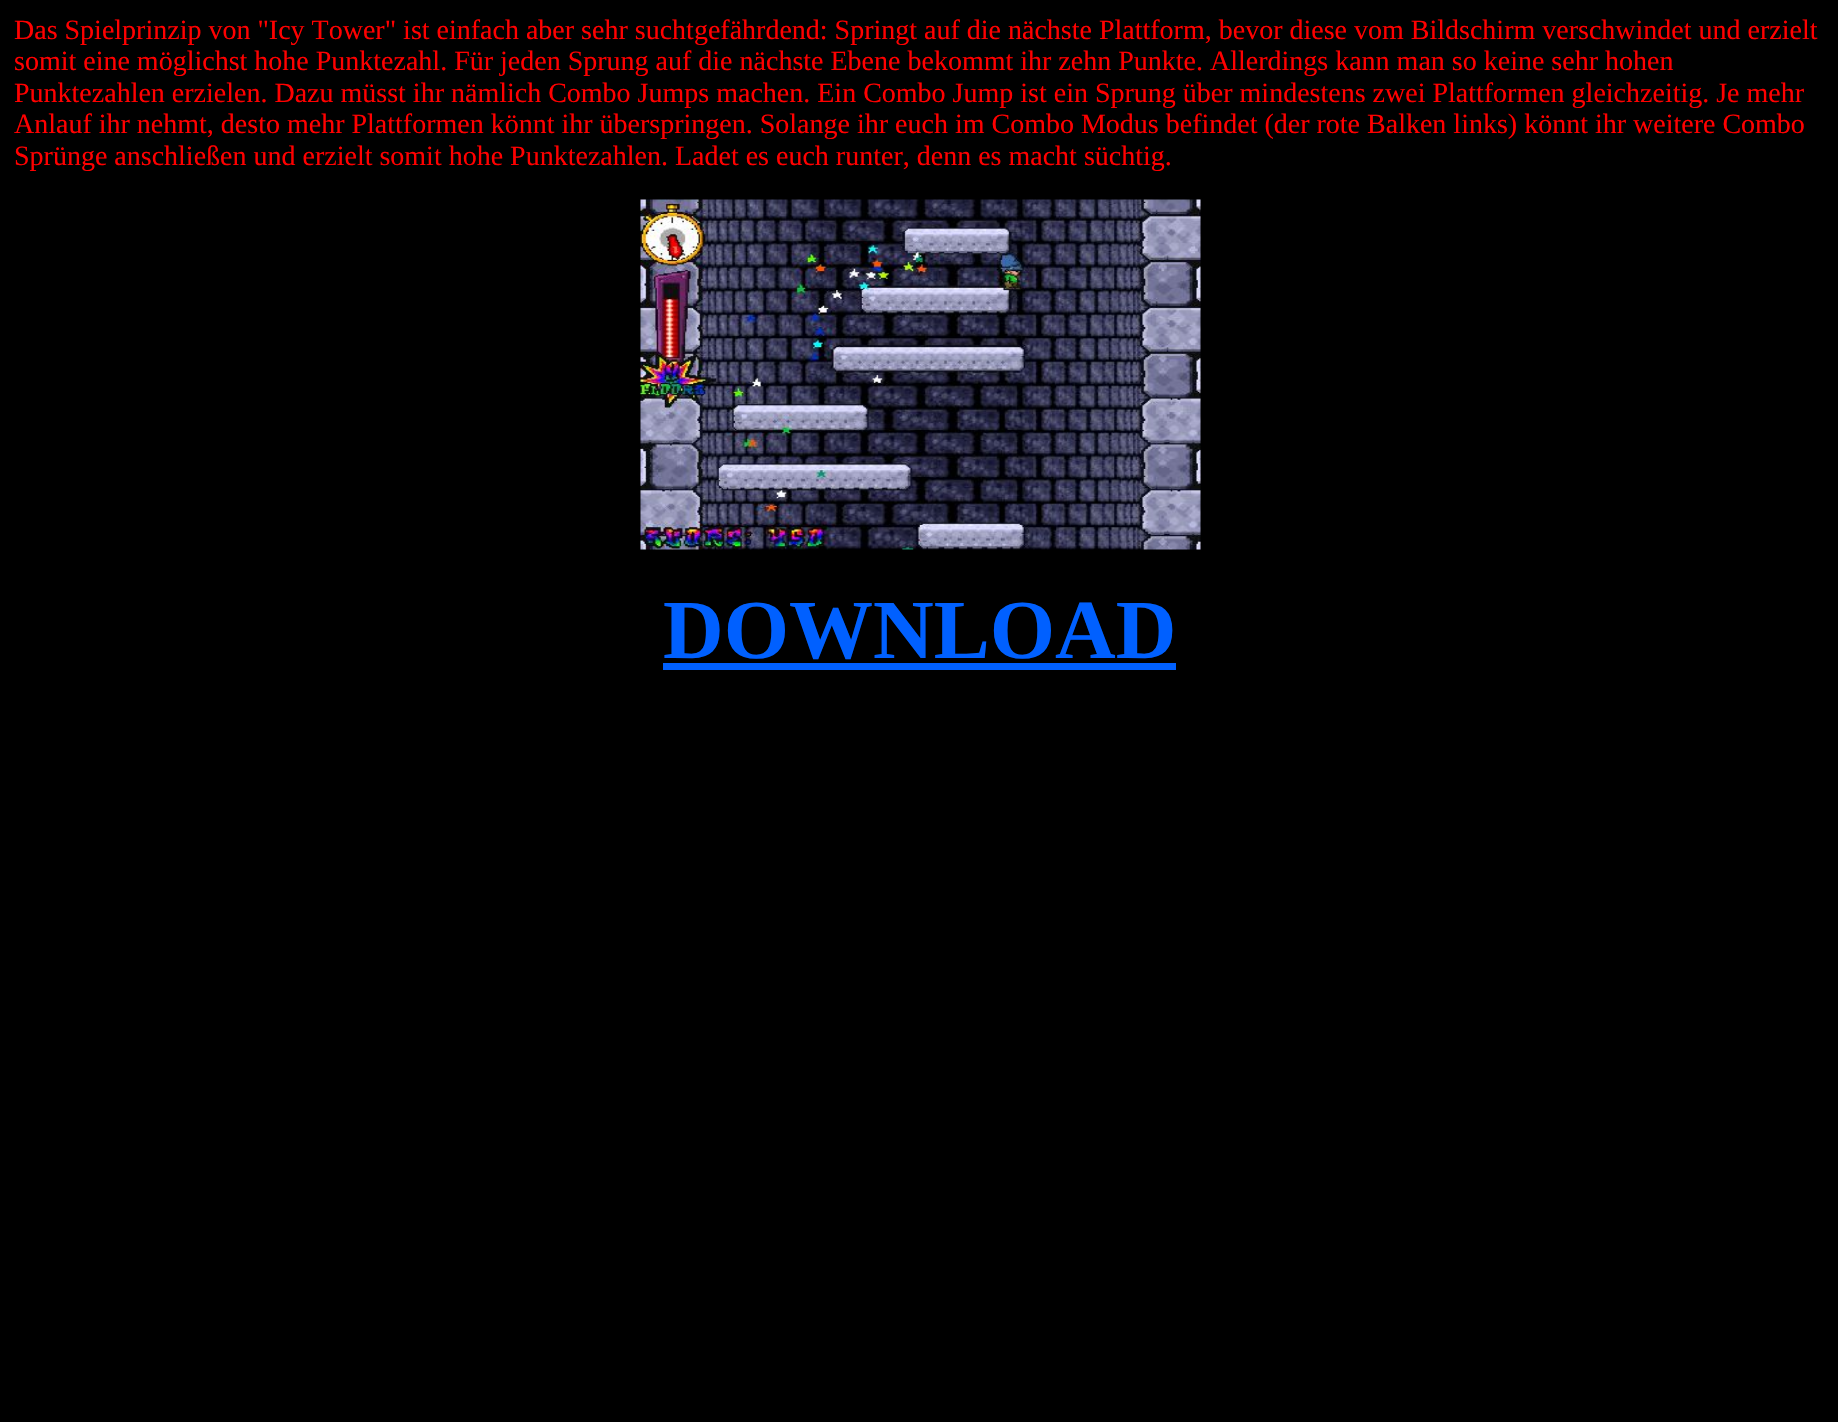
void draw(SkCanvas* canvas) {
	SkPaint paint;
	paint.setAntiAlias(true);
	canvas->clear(0xff000000);
	SkFont f1(fontMgr->matchFamilyStyle("Liberation Serif", SkFontStyle::Normal()), 28);
	f1.setSubpixel(true);
	paint.setColor(0xffff0000);
	canvas->drawString("Das Spielprinzip von \"Icy Tower\" ist einfach aber sehr suchtgefährdend: Springt auf die nächste Plattform, bevor diese vom Bildschirm verschwindet und erzielt", 14, 39, f1, paint);
	canvas->drawString("somit eine möglichst hohe Punktezahl. Für jeden Sprung auf die nächste Ebene bekommt ihr zehn Punkte. Allerdings kann man so keine sehr hohen", 14, 70, f1, paint);
	canvas->drawString("Punktezahlen erzielen. Dazu müsst ihr nämlich Combo Jumps machen. Ein Combo Jump ist ein Sprung über mindestens zwei Plattformen gleichzeitig. Je mehr", 14, 102, f1, paint);
	canvas->drawString("Anlauf ihr nehmt, desto mehr Plattformen könnt ihr überspringen. Solange ihr euch im Combo Modus befindet (der rote Balken links) könnt ihr weitere Combo", 14, 133, f1, paint);
	canvas->drawString("Sprünge anschließen und erzielt somit hohe Punktezahlen. Ladet es euch runter, denn es macht süchtig.", 14, 165, f1, paint);
	canvas->drawImageRect(SkImages::DeferredFromEncodedData(SkData::MakeFromFileName("img1.png")), SkRect::MakeXYWH(640, 199, 561, 351), SkSamplingOptions());
	SkFont f2(fontMgr->matchFamilyStyle("Liberation Serif", SkFontStyle::Bold()), 84);
	f2.setSubpixel(true);
	paint.setColor(0xff0060ff);
	canvas->drawString("DOWNLOAD", 663, 658, f2, paint);
	canvas->drawRect(SkRect::MakeXYWH(663, 663, 513, 7), paint);
}
